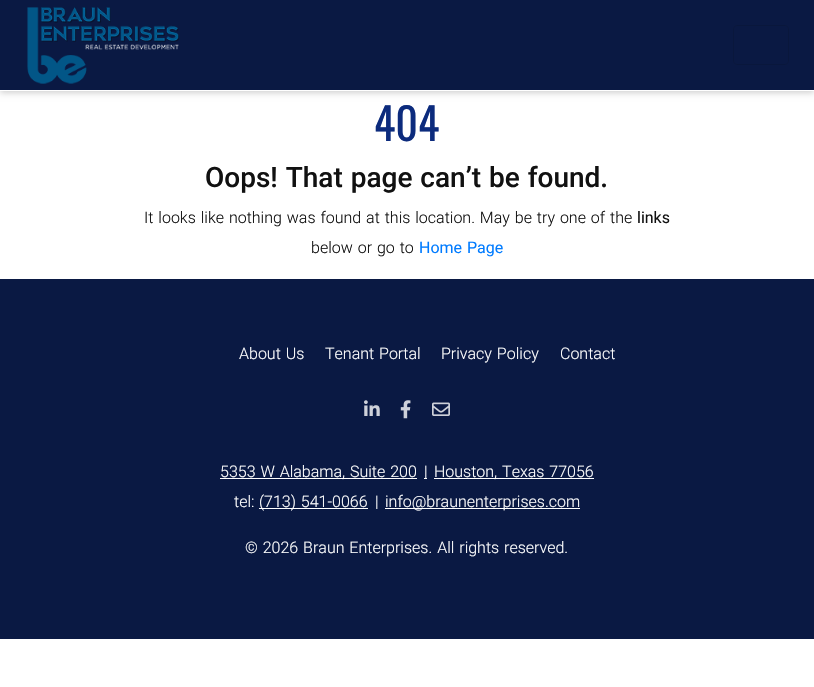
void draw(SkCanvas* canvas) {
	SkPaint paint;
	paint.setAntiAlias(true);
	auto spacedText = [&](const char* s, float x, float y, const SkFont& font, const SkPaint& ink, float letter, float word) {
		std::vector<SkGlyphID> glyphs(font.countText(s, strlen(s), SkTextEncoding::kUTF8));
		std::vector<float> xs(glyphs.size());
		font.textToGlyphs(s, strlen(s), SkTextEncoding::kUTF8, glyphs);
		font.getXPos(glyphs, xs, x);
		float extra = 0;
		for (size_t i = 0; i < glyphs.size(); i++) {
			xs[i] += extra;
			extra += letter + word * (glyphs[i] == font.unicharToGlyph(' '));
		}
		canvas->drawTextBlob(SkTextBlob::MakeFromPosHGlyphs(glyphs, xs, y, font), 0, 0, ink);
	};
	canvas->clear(0xffffffff);
	paint.setColor(0x2e000000);
	paint.setMaskFilter(SkMaskFilter::MakeBlur(kNormal_SkBlurStyle, 3));
	canvas->drawRect(SkRect::MakeXYWH(0, 2, 814, 91), paint);
	paint.setMaskFilter(nullptr);
	paint.setColor(0xff0a1943);
	canvas->drawRect(SkRect::MakeXYWH(0, 0, 814, 90), paint);
	paint.setColor(0xffffffff);
	canvas->drawRect(SkRect::MakeXYWH(0, 90, 814, 1), paint);
	canvas->drawImageRect(SkImages::DeferredFromEncodedData(SkData::MakeFromFileName("img1.png")), SkRect::MakeXYWH(27, 7, 153, 77), SkSamplingOptions());
	paint.setStroke(true);
	paint.setStrokeWidth(1);
	paint.setColor(0xff09173c);
	canvas->drawRoundRect(SkRect::MakeXYWH(733.5, 25.5, 55, 39), 3.5, 3.5, paint);
	SkFont f1(fontMgr->matchFamilyStyle("Oswald", SkFontStyle::Normal()), 44);
	f1.setSubpixel(true);
	paint.setStroke(false);
	paint.setColor(0xff0c2b7d);
	canvas->drawString("404", 374, 141, f1, paint);
	SkFont f2(fontMgr->matchFamilyStyle("Roboto", SkFontStyle(500, SkFontStyle::kNormal_Width, SkFontStyle::kUpright_Slant)), 28);
	f2.setSubpixel(true);
	paint.setColor(0xff111111);
	spacedText("Oops! That page can’t be found.", 205, 187, f2, paint, 0, 1);
	SkFont f3(fontMgr->matchFamilyStyle("Roboto", SkFontStyle(300, SkFontStyle::kNormal_Width, SkFontStyle::kUpright_Slant)), 16);
	f3.setSubpixel(true);
	spacedText("It looks like nothing was found at this location. May be try one of the", 144, 223, f3, paint, 0, 1);
	SkFont f4(fontMgr->matchFamilyStyle("Roboto", SkFontStyle::Normal()), 16);
	f4.setSubpixel(true);
	canvas->drawString("links", 637, 223, f4, paint);
	spacedText("below or go to", 311, 253, f3, paint, 0, 1);
	paint.setColor(0xff007bff);
	spacedText("Home Page", 419, 253, f4, paint, 0, 1);
	paint.setColor(0xff0a1943);
	canvas->drawRect(SkRect::MakeXYWH(0, 279, 814, 360), paint);
	paint.setColor(0xffffffff);
	spacedText("About Us", 239, 359, f3, paint, 0, 1);
	spacedText("Tenant Portal", 325, 359, f3, paint, 0, 1);
	spacedText("Privacy Policy", 441, 359, f3, paint, 0, 1);
	canvas->drawString("Contact", 560, 359, f3, paint);
	canvas->drawImageRect(SkImages::DeferredFromEncodedData(SkData::MakeFromFileName("img2.png")), SkRect::MakeXYWH(364, 400, 16, 16), SkSamplingOptions());
	canvas->drawImageRect(SkImages::DeferredFromEncodedData(SkData::MakeFromFileName("img3.png")), SkRect::MakeXYWH(400, 400, 11, 19), SkSamplingOptions());
	canvas->drawImageRect(SkImages::DeferredFromEncodedData(SkData::MakeFromFileName("img4.png")), SkRect::MakeXYWH(432, 402, 18, 14), SkSamplingOptions());
	canvas->drawRect(SkRect::MakeXYWH(220, 478, 197, 1), paint);
	spacedText("5353 W Alabama, Suite 200", 220, 477, f3, paint, 0, 1);
	canvas->drawRect(SkRect::MakeXYWH(424, 478, 3, 1), paint);
	canvas->drawString("|", 424, 477, f3, paint);
	canvas->drawRect(SkRect::MakeXYWH(434, 478, 160, 1), paint);
	spacedText("Houston, Texas 77056", 434, 477, f3, paint, 0, 1);
	canvas->drawString("tel:", 234, 507, f3, paint);
	canvas->drawRect(SkRect::MakeXYWH(259, 508, 109, 1), paint);
	spacedText("(713) 541-0066", 259, 507, f3, paint, 0, 1);
	canvas->drawString("|", 375, 507, f3, paint);
	canvas->drawRect(SkRect::MakeXYWH(385, 508, 195, 1), paint);
	canvas->drawString("info@braunenterprises.com", 385, 507, f3, paint);
	spacedText("© 2026 Braun Enterprises. All rights reserved.", 245, 553, f3, paint, 0, 1);
}
